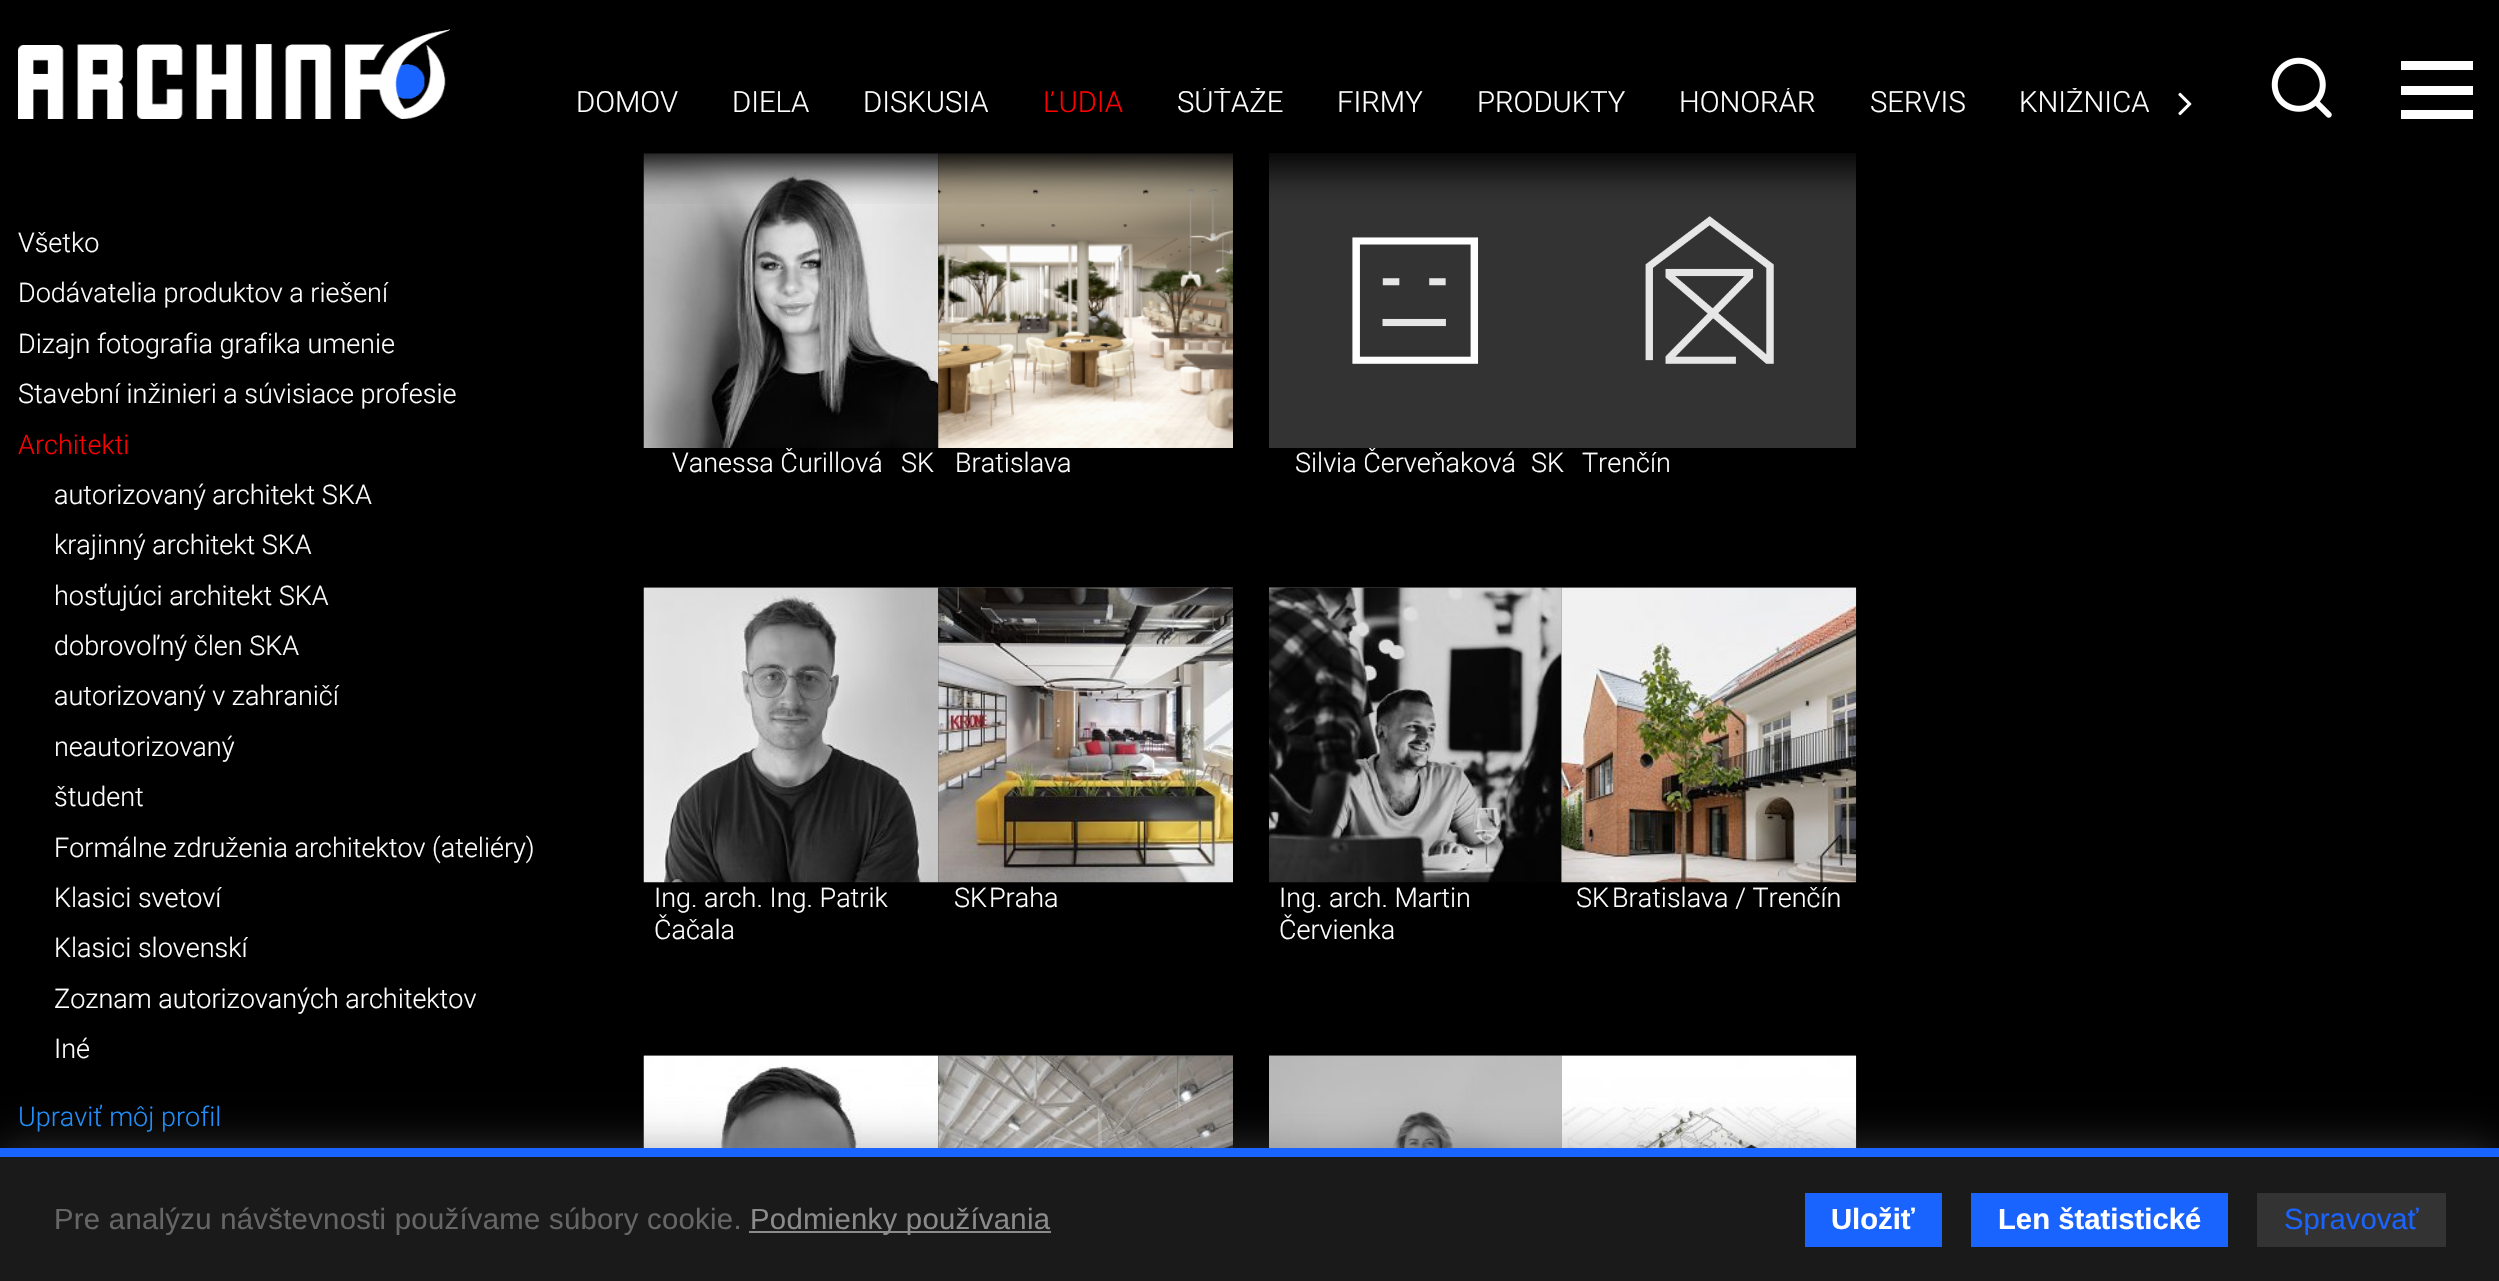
void draw(SkCanvas* canvas) {
	SkPaint paint;
	paint.setAntiAlias(true);
	auto spacedText = [&](const char* s, float x, float y, const SkFont& font, const SkPaint& ink, float letter, float word) {
		std::vector<SkGlyphID> glyphs(font.countText(s, strlen(s), SkTextEncoding::kUTF8));
		std::vector<float> xs(glyphs.size());
		font.textToGlyphs(s, strlen(s), SkTextEncoding::kUTF8, glyphs);
		font.getXPos(glyphs, xs, x);
		float extra = 0;
		for (size_t i = 0; i < glyphs.size(); i++) {
			xs[i] += extra;
			extra += letter + word * (glyphs[i] == font.unicharToGlyph(' '));
		}
		canvas->drawTextBlob(SkTextBlob::MakeFromPosHGlyphs(glyphs, xs, y, font), 0, 0, ink);
	};
	canvas->clear(0xff000000);
	SkFont f1(fontMgr->matchFamilyStyle("Roboto", SkFontStyle(300, SkFontStyle::kNormal_Width, SkFontStyle::kUpright_Slant)), 27);
	f1.setSubpixel(true);
	paint.setColor(0xffffffff);
	canvas->drawString("Vanessa Čurillová", 672, 472, f1, paint);
	canvas->drawImageRect(SkImages::DeferredFromEncodedData(SkData::MakeFromFileName("img4.png")), SkRect::MakeXYWH(643, 153, 296, 295), SkSamplingOptions());
	canvas->drawImageRect(SkImages::DeferredFromEncodedData(SkData::MakeFromFileName("img5.png")), SkRect::MakeXYWH(938, 153, 295, 295), SkSamplingOptions());
	canvas->drawString("Silvia Červeňaková", 1295, 472, f1, paint);
	paint.setColor(0xff333333);
	canvas->drawRect(SkRect::MakeXYWH(1269, 153, 587, 295), paint);
	canvas->drawImageRect(SkImages::DeferredFromEncodedData(SkData::MakeFromFileName("img7.png")), SkRect::MakeXYWH(1645, 216, 129, 148), SkSamplingOptions());
	canvas->save();
	canvas->clipRect(SkRect::MakeXYWH(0, 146, 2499, 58));
	paint.setColor(0xff000000);
	paint.setMaskFilter(SkMaskFilter::MakeBlur(kNormal_SkBlurStyle, 17));
	canvas->drawRect(SkRect::MakeXYWH(-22, -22, 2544, 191), paint);
	paint.setMaskFilter(nullptr);
	canvas->restore();
	canvas->drawImageRect(SkImages::DeferredFromEncodedData(SkData::MakeFromFileName("img1.png")), SkRect::MakeXYWH(18, 29, 432, 90), SkSamplingOptions());
	SkFont f2(fontMgr->matchFamilyStyle("Roboto", SkFontStyle(300, SkFontStyle::kNormal_Width, SkFontStyle::kUpright_Slant)), 29.25);
	f2.setSubpixel(true);
	paint.setColor(0xffffffff);
	canvas->drawString("DOMOV", 576, 112, f2, paint);
	canvas->drawString("DIELA", 732, 112, f2, paint);
	canvas->drawString("DISKUSIA", 863, 112, f2, paint);
	paint.setColor(0xffff0000);
	canvas->drawString("ĽUDIA", 1043, 112, f2, paint);
	canvas->save();
	canvas->clipRect(SkRect::MakeXYWH(576, 88, 1573, 31));
	paint.setColor(0xffffffff);
	canvas->drawString("SÚŤAŽE", 1177, 112, f2, paint);
	canvas->restore();
	canvas->drawString("FIRMY", 1337, 112, f2, paint);
	canvas->drawString("PRODUKTY", 1477, 112, f2, paint);
	canvas->save();
	canvas->clipRect(SkRect::MakeXYWH(576, 88, 1573, 31));
	canvas->drawString("HONORÁR", 1679, 112, f2, paint);
	canvas->restore();
	canvas->drawString("SERVIS", 1870, 112, f2, paint);
	canvas->save();
	canvas->clipRect(SkRect::MakeXYWH(576, 88, 1573, 31));
	canvas->drawString("KNIŽNICA", 2019, 112, f2, paint);
	canvas->restore();
	canvas->drawImageRect(SkImages::DeferredFromEncodedData(SkData::MakeFromFileName("img2.png")), SkRect::MakeXYWH(2178, 92, 14, 24), SkSamplingOptions());
	canvas->drawImageRect(SkImages::DeferredFromEncodedData(SkData::MakeFromFileName("img3.png")), SkRect::MakeXYWH(2271, 57, 61, 61), SkSamplingOptions());
	canvas->drawRect(SkRect::MakeXYWH(2401, 61, 72, 9), paint);
	canvas->drawRect(SkRect::MakeXYWH(2401, 86, 72, 9), paint);
	canvas->drawRect(SkRect::MakeXYWH(2401, 110, 72, 9), paint);
	canvas->drawString("Všetko", 18, 252, f1, paint);
	canvas->drawString("Dodávatelia produktov a riešení", 18, 302, f1, paint);
	canvas->drawString("Dizajn fotografia grafika umenie", 18, 353, f1, paint);
	canvas->drawString("Stavební inžinieri a súvisiace profesie", 18, 403, f1, paint);
	paint.setColor(0xffff0000);
	canvas->drawString("Architekti", 18, 454, f1, paint);
	paint.setColor(0xffffffff);
	canvas->drawString("autorizovaný architekt SKA", 54, 504, f1, paint);
	canvas->drawString("krajinný architekt SKA", 54, 554, f1, paint);
	canvas->drawString("hosťujúci architekt SKA", 54, 605, f1, paint);
	canvas->drawString("dobrovoľný člen SKA", 54, 655, f1, paint);
	canvas->drawString("autorizovaný v zahraničí", 54, 705, f1, paint);
	canvas->drawString("neautorizovaný", 54, 756, f1, paint);
	canvas->drawString("študent", 54, 806, f1, paint);
	canvas->drawString("Formálne združenia architektov (ateliéry)", 54, 857, f1, paint);
	canvas->drawString("Klasici svetoví", 54, 907, f1, paint);
	canvas->drawString("Klasici slovenskí", 54, 957, f1, paint);
	canvas->drawString("Zoznam autorizovaných architektov", 54, 1008, f1, paint);
	canvas->drawString("Iné", 54, 1058, f1, paint);
	paint.setColor(0xff1e90ff);
	canvas->drawString("Upraviť môj profil", 18, 1126, f1, paint);
	paint.setColor(0xffffffff);
	canvas->drawString("SK", 901, 472, f1, paint);
	canvas->drawString("Bratislava", 955, 472, f1, paint);
	canvas->drawImageRect(SkImages::DeferredFromEncodedData(SkData::MakeFromFileName("img6.png")), SkRect::MakeXYWH(1352, 237, 127, 127), SkSamplingOptions());
	canvas->drawString("SK", 1531, 472, f1, paint);
	canvas->drawString("Trenčín", 1582, 472, f1, paint);
	paint.setColor(0xff333333);
	canvas->drawRect(SkRect::MakeXYWH(644, 587, 294, 1), paint);
	canvas->drawImageRect(SkImages::DeferredFromEncodedData(SkData::MakeFromFileName("img8.png")), SkRect::MakeXYWH(643, 587, 296, 296), SkSamplingOptions());
	canvas->drawRect(SkRect::MakeXYWH(938, 587, 295, 295), paint);
	canvas->drawImageRect(SkImages::DeferredFromEncodedData(SkData::MakeFromFileName("img9.png")), SkRect::MakeXYWH(938, 587, 295, 296), SkSamplingOptions());
	paint.setColor(0xffffffff);
	canvas->drawString("Ing. arch. Ing. Patrik", 654, 907, f1, paint);
	canvas->drawString("Čačala", 654, 939, f1, paint);
	canvas->drawString("SK", 954, 907, f1, paint);
	canvas->drawString("Praha", 989, 907, f1, paint);
	paint.setColor(0xff333333);
	canvas->drawRect(SkRect::MakeXYWH(1269, 587, 293, 295), paint);
	canvas->drawImageRect(SkImages::DeferredFromEncodedData(SkData::MakeFromFileName("img10.png")), SkRect::MakeXYWH(1269, 587, 293, 296), SkSamplingOptions());
	canvas->drawRect(SkRect::MakeXYWH(1562, 587, 294, 1), paint);
	canvas->drawImageRect(SkImages::DeferredFromEncodedData(SkData::MakeFromFileName("img11.png")), SkRect::MakeXYWH(1561, 587, 296, 296), SkSamplingOptions());
	paint.setColor(0xffffffff);
	canvas->drawString("Ing. arch. Martin", 1279, 907, f1, paint);
	canvas->drawString("Červienka", 1279, 939, f1, paint);
	canvas->drawString("SK", 1576, 907, f1, paint);
	canvas->drawString("Bratislava / Trenčín", 1612, 907, f1, paint);
	paint.setColor(0xff333333);
	canvas->drawRect(SkRect::MakeXYWH(644, 1055, 294, 1), paint);
	canvas->drawImageRect(SkImages::DeferredFromEncodedData(SkData::MakeFromFileName("img12.png")), SkRect::MakeXYWH(643, 1055, 295, 93), SkSamplingOptions());
	canvas->drawRect(SkRect::MakeXYWH(938, 1055, 295, 93), paint);
	canvas->drawImageRect(SkImages::DeferredFromEncodedData(SkData::MakeFromFileName("img13.png")), SkRect::MakeXYWH(938, 1055, 295, 93), SkSamplingOptions());
	canvas->drawRect(SkRect::MakeXYWH(1269, 1055, 293, 93), paint);
	canvas->drawImageRect(SkImages::DeferredFromEncodedData(SkData::MakeFromFileName("img14.png")), SkRect::MakeXYWH(1269, 1055, 293, 93), SkSamplingOptions());
	canvas->drawRect(SkRect::MakeXYWH(1562, 1055, 294, 1), paint);
	canvas->drawImageRect(SkImages::DeferredFromEncodedData(SkData::MakeFromFileName("img15.png")), SkRect::MakeXYWH(1561, 1055, 296, 93), SkSamplingOptions());
	paint.setColor(0x80646464);
	paint.setMaskFilter(SkMaskFilter::MakeBlur(kNormal_SkBlurStyle, 22.5));
	canvas->drawRect(SkRect::MakeXYWH(0, 1148, 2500, 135), paint);
	paint.setMaskFilter(nullptr);
	paint.setColor(0xff1a1a1a);
	canvas->drawRect(SkRect::MakeXYWH(0, 1157, 2499, 124), paint);
	paint.setColor(0xff1964ff);
	canvas->drawRect(SkRect::MakeXYWH(0, 1148, 2499, 9), paint);
	SkFont f3(fontMgr->matchFamilyStyle("Liberation Sans", SkFontStyle::Normal()), 29.25);
	f3.setSubpixel(true);
	paint.setColor(0xff666666);
	spacedText("Pre analýzu návštevnosti používame súbory cookie.", 54, 1229, f3, paint, 0.3, 0);
	paint.setColor(0xff8b8b8b);
	canvas->drawRect(SkRect::MakeXYWH(749, 1231, 302, 2), paint);
	spacedText("Podmienky používania", 750, 1229, f3, paint, 0.3, 0);
	paint.setColor(0xff1964ff);
	canvas->drawRect(SkRect::MakeXYWH(1805, 1193, 137, 54), paint);
	SkFont f4(fontMgr->matchFamilyStyle("Liberation Sans", SkFontStyle::Bold()), 29.25);
	f4.setSubpixel(true);
	paint.setColor(0xffffffff);
	canvas->drawString("Uložiť", 1831, 1229, f4, paint);
	paint.setColor(0xff1964ff);
	canvas->drawRect(SkRect::MakeXYWH(1971, 1193, 257, 54), paint);
	paint.setColor(0xffffffff);
	canvas->drawString("Len štatistické", 1998, 1229, f4, paint);
	paint.setColor(0xff333333);
	canvas->drawRect(SkRect::MakeXYWH(2257, 1193, 189, 54), paint);
	paint.setColor(0xff1964ff);
	canvas->drawString("Spravovať", 2284, 1229, f3, paint);
}
